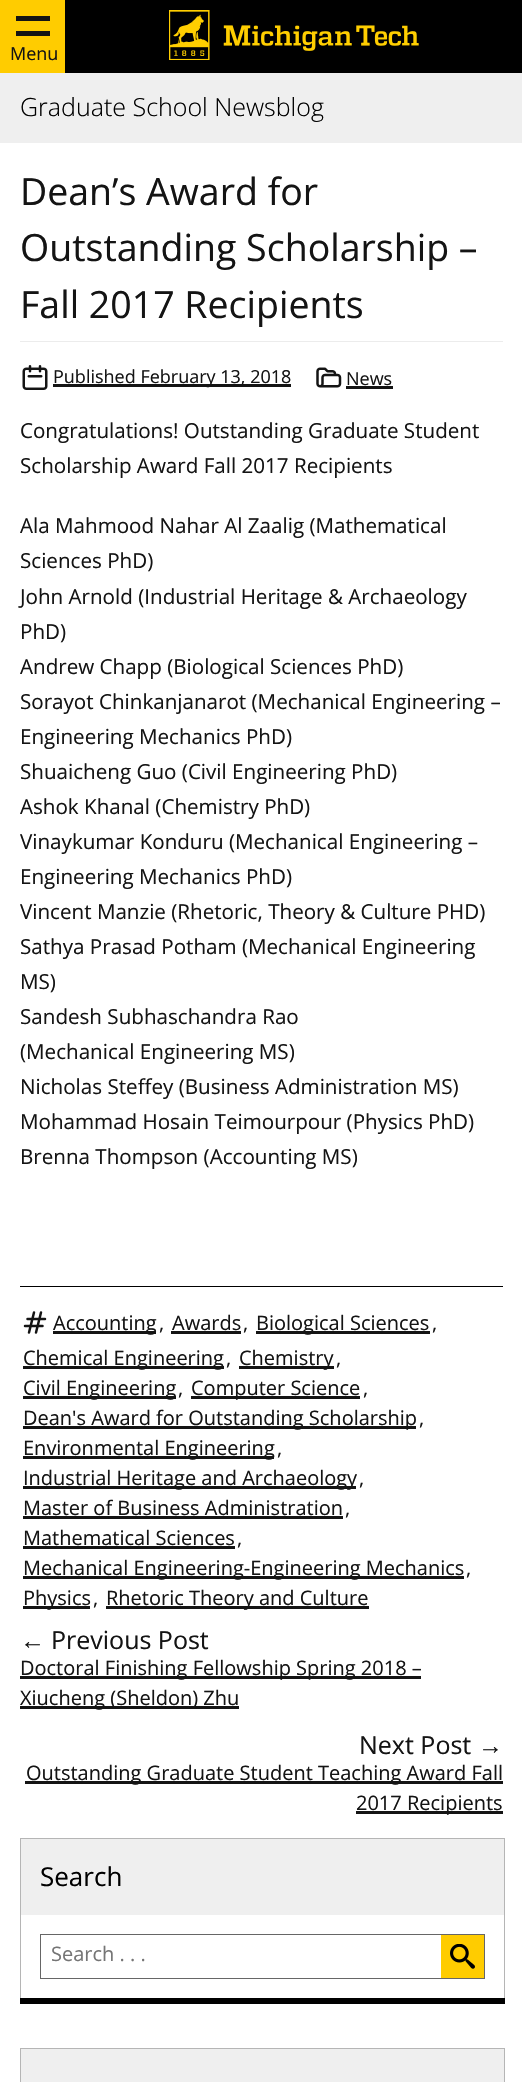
void draw(SkCanvas* canvas) {
	SkPaint paint;
	paint.setAntiAlias(true);
	auto svgPath = [&](const char* data, bool evenOdd = false) {
		SkPath result = *SkParsePath::FromSVGString(data);
		if (evenOdd) result.setFillType(SkPathFillType::kEvenOdd);
		return result;
	};
	canvas->clear(0xffffffff);
	paint.setColor(0xff000000);
	canvas->drawRect(SkRect::MakeXYWH(65, 0, 457, 73), paint);
	paint.setColor(0xffffcc00);
	canvas->drawRect(SkRect::MakeXYWH(0, 0, 65, 73), paint);
	paint.setColor(0xff141414);
	canvas->drawRect(SkRect::MakeXYWH(16, 16, 34, 5), paint);
	canvas->drawRect(SkRect::MakeXYWH(16, 31, 34, 5), paint);
	SkFont f1(fontMgr->matchFamilyStyle("Open Sans", SkFontStyle::Normal()), 18);
	f1.setSubpixel(true);
	canvas->drawString("Menu", 10, 60, f1, paint);
	canvas->drawImageRect(SkImages::DeferredFromEncodedData(SkData::MakeFromFileName("img1.png")), SkRect::MakeXYWH(169, 10, 250, 50), SkSamplingOptions());
	paint.setColor(0xffefefef);
	canvas->drawRect(SkRect::MakeXYWH(0, 73, 522, 70), paint);
	SkFont f2(fontMgr->matchFamilyStyle("Open Sans", SkFontStyle(300, SkFontStyle::kNormal_Width, SkFontStyle::kUpright_Slant)), 25);
	f2.setSubpixel(true);
	paint.setColor(0xff000000);
	canvas->drawString("Graduate School Newsblog", 20, 116, f2, paint);
	SkFont f3(fontMgr->matchFamilyStyle("Open Sans", SkFontStyle::Normal()), 37.5);
	f3.setSubpixel(true);
	paint.setColor(0xff141414);
	canvas->drawString("Dean’s Award for", 20, 205, f3, paint);
	canvas->drawString("Outstanding Scholarship –", 20, 261, f3, paint);
	canvas->drawString("Fall 2017 Recipients", 20, 318, f3, paint);
	paint.setColor(0xffececec);
	canvas->drawRect(SkRect::MakeXYWH(20, 341, 483, 1), paint);
	canvas->drawImageRect(SkImages::DeferredFromEncodedData(SkData::MakeFromFileName("img2.png")), SkRect::MakeXYWH(22, 365, 26, 25), SkSamplingOptions());
	paint.setColor(0xff141414);
	canvas->drawRect(SkRect::MakeXYWH(53, 384, 238, 3), paint);
	canvas->drawString("Published February 13, 2018", 53, 383, f1, paint);
	canvas->drawImageRect(SkImages::DeferredFromEncodedData(SkData::MakeFromFileName("img3.png")), SkRect::MakeXYWH(316, 367, 26, 21), SkSamplingOptions());
	canvas->drawString("News", 346, 385, f1, paint);
	canvas->drawRect(SkRect::MakeXYWH(346, 386, 47, 3), paint);
	SkFont f4(fontMgr->matchFamilyStyle("Open Sans", SkFontStyle::Normal()), 20.6);
	f4.setSubpixel(true);
	canvas->drawString("Congratulations! Outstanding Graduate Student", 20, 438, f4, paint);
	canvas->drawString("Scholarship Award Fall 2017 Recipients", 20, 473, f4, paint);
	canvas->drawString("Ala Mahmood Nahar Al Zaalig (Mathematical", 20, 533, f4, paint);
	canvas->drawString("Sciences PhD)", 20, 568, f4, paint);
	canvas->drawString("John Arnold (Industrial Heritage & Archaeology", 20, 604, f4, paint);
	canvas->drawString("PhD)", 20, 639, f4, paint);
	canvas->drawString("Andrew Chapp (Biological Sciences PhD)", 20, 674, f4, paint);
	canvas->drawString("Sorayot Chinkanjanarot (Mechanical Engineering –", 20, 709, f4, paint);
	canvas->drawString("Engineering Mechanics PhD)", 20, 744, f4, paint);
	canvas->drawString("Shuaicheng Guo (Civil Engineering PhD)", 20, 779, f4, paint);
	canvas->drawString("Ashok Khanal (Chemistry PhD)", 20, 814, f4, paint);
	canvas->drawString("Vinaykumar Konduru (Mechanical Engineering –", 20, 849, f4, paint);
	canvas->drawString("Engineering Mechanics PhD)", 20, 884, f4, paint);
	canvas->drawString("Vincent Manzie (Rhetoric, Theory & Culture PHD)", 20, 919, f4, paint);
	canvas->drawString("Sathya Prasad Potham (Mechanical Engineering", 20, 954, f4, paint);
	canvas->drawString("MS)", 20, 989, f4, paint);
	canvas->drawString("Sandesh Subhaschandra Rao", 20, 1024, f4, paint);
	canvas->drawString("(Mechanical Engineering MS)", 20, 1059, f4, paint);
	canvas->drawString("Nicholas Steffey (Business Administration MS)", 20, 1094, f4, paint);
	canvas->drawString("Mohammad Hosain Teimourpour (Physics PhD)", 20, 1129, f4, paint);
	canvas->drawString("Brenna Thompson (Accounting MS)", 20, 1164, f4, paint);
	paint.setColor(0xff000000);
	canvas->drawRect(SkRect::MakeXYWH(20, 1286, 483, 1), paint);
	paint.setStroke(true);
	paint.setStrokeWidth(2.5);
	paint.setStrokeCap(SkPaint::kRound_Cap);
	paint.setStrokeJoin(SkPaint::kRound_Join);
	paint.setColor(0xff141414);
	canvas->drawPath(svgPath("M29 1332.5L34 1312.5M36 1332.5L41 1312.5M27.5 1319H45M25 1326H42.5"), paint);
	paint.setStroke(false);
	canvas->drawRect(SkRect::MakeXYWH(53, 1331, 103, 3), paint);
	SkFont f5(fontMgr->matchFamilyStyle("Open Sans", SkFontStyle::Normal()), 20);
	f5.setSubpixel(true);
	canvas->drawString("Accounting", 53, 1330, f5, paint);
	canvas->drawString(",", 159, 1330, f5, paint);
	canvas->drawString("Awards", 172, 1330, f5, paint);
	canvas->drawRect(SkRect::MakeXYWH(171, 1331, 70, 3), paint);
	canvas->drawString(",", 243, 1330, f5, paint);
	canvas->drawRect(SkRect::MakeXYWH(256, 1331, 174, 3), paint);
	canvas->drawString("Biological Sciences", 256, 1330, f5, paint);
	canvas->drawString(",", 432, 1330, f5, paint);
	canvas->drawRect(SkRect::MakeXYWH(23, 1366, 201, 3), paint);
	canvas->drawString("Chemical Engineering", 23, 1365, f5, paint);
	canvas->drawString(",", 226, 1365, f5, paint);
	canvas->drawRect(SkRect::MakeXYWH(239, 1366, 95, 3), paint);
	canvas->drawString("Chemistry", 239, 1365, f5, paint);
	canvas->drawString(",", 336, 1365, f5, paint);
	canvas->drawRect(SkRect::MakeXYWH(23, 1396, 153, 3), paint);
	canvas->drawString("Civil Engineering", 23, 1395, f5, paint);
	canvas->drawString(",", 178, 1395, f5, paint);
	canvas->drawRect(SkRect::MakeXYWH(191, 1396, 169, 3), paint);
	canvas->drawString("Computer Science", 191, 1395, f5, paint);
	canvas->drawString(",", 363, 1395, f5, paint);
	canvas->drawRect(SkRect::MakeXYWH(23, 1426, 393, 3), paint);
	canvas->drawString("Dean's Award for Outstanding Scholarship", 23, 1425, f5, paint);
	canvas->drawString(",", 419, 1425, f5, paint);
	canvas->drawRect(SkRect::MakeXYWH(23, 1456, 251, 3), paint);
	canvas->drawString("Environmental Engineering", 23, 1455, f5, paint);
	canvas->drawString(",", 277, 1455, f5, paint);
	canvas->drawRect(SkRect::MakeXYWH(23, 1486, 333, 3), paint);
	canvas->drawString("Industrial Heritage and Archaeology", 23, 1485, f5, paint);
	canvas->drawString(",", 359, 1485, f5, paint);
	canvas->drawString("Master of Business Administration", 23, 1515, f5, paint);
	canvas->drawRect(SkRect::MakeXYWH(23, 1516, 320, 3), paint);
	canvas->drawString(",", 345, 1515, f5, paint);
	canvas->drawString("Mathematical Sciences", 23, 1545, f5, paint);
	canvas->drawRect(SkRect::MakeXYWH(23, 1546, 212, 3), paint);
	canvas->drawString(",", 237, 1545, f5, paint);
	canvas->drawRect(SkRect::MakeXYWH(23, 1576, 441, 3), paint);
	canvas->drawString("Mechanical Engineering-Engineering Mechanics", 23, 1575, f5, paint);
	canvas->drawString(",", 466, 1575, f5, paint);
	canvas->drawRect(SkRect::MakeXYWH(23, 1606, 67, 3), paint);
	canvas->drawString("Physics", 23, 1605, f5, paint);
	canvas->drawString(",", 93, 1605, f5, paint);
	canvas->drawRect(SkRect::MakeXYWH(106, 1606, 263, 3), paint);
	canvas->drawString("Rhetoric Theory and Culture", 106, 1605, f5, paint);
	SkFont f6(fontMgr->matchFamilyStyle("Liberation Sans", SkFontStyle::Normal()), 25);
	f6.setSubpixel(true);
	canvas->drawString("←", 20, 1649, f6, paint);
	SkFont f7(fontMgr->matchFamilyStyle("Open Sans", SkFontStyle::Normal()), 25);
	f7.setSubpixel(true);
	canvas->drawString("Previous Post", 51, 1649, f7, paint);
	canvas->drawRect(SkRect::MakeXYWH(20, 1676, 401, 3), paint);
	canvas->drawString("Doctoral Finishing Fellowship Spring 2018 –", 20, 1675, f5, paint);
	canvas->drawRect(SkRect::MakeXYWH(20, 1706, 219, 3), paint);
	canvas->drawString("Xiucheng (Sheldon) Zhu", 20, 1705, f5, paint);
	canvas->drawString("Next Post", 359, 1754, f7, paint);
	canvas->drawString("→", 478, 1754, f6, paint);
	canvas->drawRect(SkRect::MakeXYWH(25, 1781, 478, 3), paint);
	canvas->drawString("Outstanding Graduate Student Teaching Award Fall", 26, 1780, f5, paint);
	canvas->drawRect(SkRect::MakeXYWH(356, 1811, 147, 3), paint);
	canvas->drawString("2017 Recipients", 356, 1810, f5, paint);
	paint.setColor(0xff000000);
	canvas->drawRect(SkRect::MakeXYWH(20, 1998, 485, 6), paint);
	paint.setColor(0xffb5b5b5);
	canvas->drawRect(SkRect::MakeXYWH(20, 1838, 485, 1), paint);
	canvas->drawRect(SkRect::MakeXYWH(504, 1838, 1, 160), paint);
	canvas->drawRect(SkRect::MakeXYWH(20, 1838, 1, 160), paint);
	paint.setColor(0xffefefef);
	canvas->drawRect(SkRect::MakeXYWH(21, 1839, 483, 76), paint);
	SkFont f8(fontMgr->matchFamilyStyle("Open Sans", SkFontStyle::Normal()), 26);
	f8.setSubpixel(true);
	paint.setColor(0xff000000);
	canvas->drawString("Search", 40, 1886, f8, paint);
	paint.setStroke(true);
	paint.setStrokeWidth(1);
	paint.setStrokeCap(SkPaint::kButt_Cap);
	paint.setStrokeJoin(SkPaint::kMiter_Join);
	paint.setColor(0xff666666);
	canvas->drawRect(SkRect::MakeXYWH(40.5, 1934.5, 444, 44), paint);
	paint.setStroke(false);
	paint.setColor(0xff757575);
	canvas->drawString("Search . . .", 51, 1961, f5, paint);
	paint.setColor(0xffffcc00);
	canvas->drawRect(SkRect::MakeXYWH(441, 1935, 43, 43), paint);
	canvas->drawImageRect(SkImages::DeferredFromEncodedData(SkData::MakeFromFileName("img4.png")), SkRect::MakeXYWH(450, 1944, 25, 25), SkSamplingOptions());
	paint.setColor(0xffb5b5b5);
	canvas->drawRect(SkRect::MakeXYWH(20, 2048, 485, 1), paint);
	canvas->drawRect(SkRect::MakeXYWH(504, 2048, 1, 34), paint);
	canvas->drawRect(SkRect::MakeXYWH(20, 2048, 1, 34), paint);
	paint.setColor(0xffefefef);
	canvas->drawRect(SkRect::MakeXYWH(21, 2049, 483, 33), paint);
}
